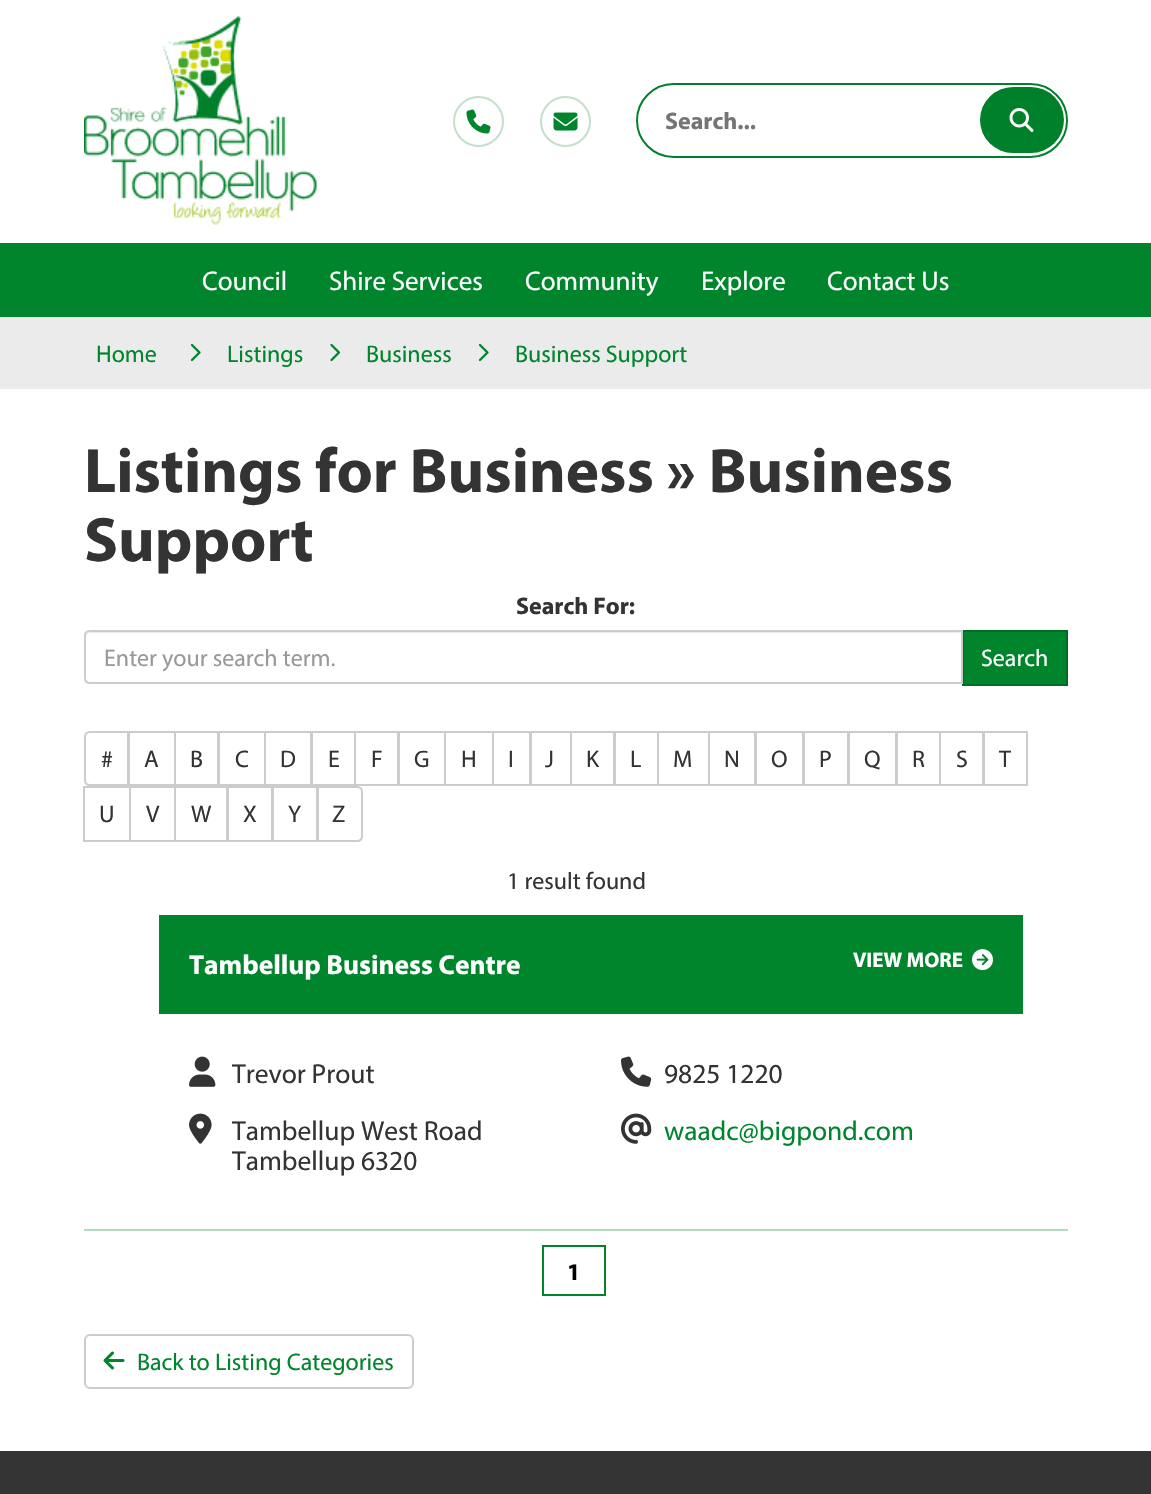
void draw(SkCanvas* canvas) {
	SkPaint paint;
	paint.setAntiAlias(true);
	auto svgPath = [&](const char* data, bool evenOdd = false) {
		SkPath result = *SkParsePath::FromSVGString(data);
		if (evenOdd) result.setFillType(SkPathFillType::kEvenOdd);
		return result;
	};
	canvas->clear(0xffffffff);
	canvas->drawImageRect(SkImages::DeferredFromEncodedData(SkData::MakeFromFileName("img1.png")), SkRect::MakeXYWH(84, 16, 233, 209), SkSamplingOptions());
	paint.setStroke(true);
	paint.setStrokeWidth(2);
	paint.setColor(0xffc2e0cc);
	canvas->drawCircle(478.5, 121.5, 24.5, paint);
	canvas->drawImageRect(SkImages::DeferredFromEncodedData(SkData::MakeFromFileName("img2.png")), SkRect::MakeXYWH(466, 109, 25, 25), SkSamplingOptions());
	canvas->drawCircle(565.5, 121.5, 24.5, paint);
	canvas->drawImageRect(SkImages::DeferredFromEncodedData(SkData::MakeFromFileName("img3.png")), SkRect::MakeXYWH(553, 112, 25, 19), SkSamplingOptions());
	paint.setColor(0xff00802b);
	canvas->drawRoundRect(SkRect::MakeXYWH(637, 84, 430, 73), 36.5, 36.5, paint);
	SkFont f1(fontMgr->matchFamilyStyle("Myriad", SkFontStyle::Bold()), 24);
	f1.setSubpixel(true);
	paint.setStroke(false);
	paint.setColor(0xff757575);
	canvas->drawString("Search...", 665, 129, f1, paint);
	paint.setColor(0xff00802b);
	canvas->drawRoundRect(SkRect::MakeXYWH(980, 87, 84, 66), 33, 33, paint);
	canvas->drawImageRect(SkImages::DeferredFromEncodedData(SkData::MakeFromFileName("img4.png")), SkRect::MakeXYWH(1009, 108, 25, 24), SkSamplingOptions());
	paint.setColor(0xff00852c);
	canvas->drawRect(SkRect::MakeXYWH(0, 243, 1151, 74), paint);
	SkFont f2(fontMgr->matchFamilyStyle("Myriad", SkFontStyle::Normal()), 27);
	f2.setSubpixel(true);
	paint.setColor(0xffffffff);
	canvas->drawString("Council", 202, 290, f2, paint);
	canvas->drawString("Shire Services", 329, 290, f2, paint);
	canvas->drawString("Community", 525, 290, f2, paint);
	canvas->drawString("Explore", 701, 290, f2, paint);
	canvas->drawString("Contact Us", 827, 290, f2, paint);
	paint.setColor(0xffebebeb);
	canvas->drawRect(SkRect::MakeXYWH(0, 317, 1151, 72), paint);
	SkFont f3(fontMgr->matchFamilyStyle("Myriad", SkFontStyle::Normal()), 24);
	f3.setSubpixel(true);
	paint.setColor(0xff00852c);
	canvas->drawString("Home", 96, 362, f3, paint);
	canvas->drawImageRect(SkImages::DeferredFromEncodedData(SkData::MakeFromFileName("img5.png")), SkRect::MakeXYWH(190, 343, 11, 19), SkSamplingOptions());
	canvas->drawString("Listings", 227, 362, f3, paint);
	canvas->drawImageRect(SkImages::DeferredFromEncodedData(SkData::MakeFromFileName("img6.png")), SkRect::MakeXYWH(330, 343, 11, 19), SkSamplingOptions());
	canvas->drawString("Business", 366, 362, f3, paint);
	canvas->drawImageRect(SkImages::DeferredFromEncodedData(SkData::MakeFromFileName("img5.png")), SkRect::MakeXYWH(478, 343, 11, 19), SkSamplingOptions());
	canvas->drawString("Business Support", 515, 362, f3, paint);
	SkFont f4(fontMgr->matchFamilyStyle("Myriad", SkFontStyle::Bold()), 63);
	f4.setSubpixel(true);
	paint.setColor(0xff333333);
	canvas->drawString("Listings for Business » Business", 84, 492, f4, paint);
	canvas->drawString("Support", 84, 561, f4, paint);
	canvas->drawString("Search For:", 516, 614, f1, paint);
	paint.setColor(0xff00852c);
	canvas->drawRect(SkRect::MakeXYWH(963, 631, 104, 54), paint);
	paint.setStroke(true);
	paint.setColor(0xff006c24);
	canvas->drawRect(SkRect::MakeXYWH(963, 631, 104, 54), paint);
	paint.setStroke(false);
	paint.setColor(0xffffffff);
	canvas->drawPath(svgPath("M90 630H963V684H90C86.5 684 84 681.5 84 678V636C84 632.5 86.5 630 90 630Z"), paint);
	paint.setColor(0xffececec);
	canvas->drawPath(svgPath("M90 633H962V632H91C88 632 86 634 86 637V638C86 635 88 633 90 633Z"), paint);
	paint.setStroke(true);
	paint.setColor(0xffcccccc);
	canvas->drawPath(svgPath("M90 631H962V683H90C87 683 85 681 85 678V636C85 633 87 631 90 631Z"), paint);
	paint.setStroke(false);
	paint.setColor(0xff999999);
	canvas->drawString("Enter your search term.", 104, 666, f3, paint);
	paint.setColor(0xffffffff);
	canvas->drawString("Search", 981, 666, f3, paint);
	paint.setStroke(true);
	paint.setColor(0xffcccccc);
	canvas->drawPath(svgPath("M90 732H128V785H90C87 785 85 783 85 780V737C85 734 87 732 90 732Z"), paint);
	paint.setStroke(false);
	paint.setColor(0xff333333);
	canvas->drawString("#", 101, 767, f3, paint);
	paint.setStroke(true);
	paint.setColor(0xffcccccc);
	canvas->drawRect(SkRect::MakeXYWH(129, 732, 46, 53), paint);
	paint.setStroke(false);
	paint.setColor(0xff333333);
	canvas->drawString("A", 144, 767, f3, paint);
	paint.setStroke(true);
	paint.setColor(0xffcccccc);
	canvas->drawRect(SkRect::MakeXYWH(175, 732, 43, 53), paint);
	paint.setStroke(false);
	paint.setColor(0xff333333);
	canvas->drawString("B", 190, 767, f3, paint);
	paint.setStroke(true);
	paint.setColor(0xffcccccc);
	canvas->drawRect(SkRect::MakeXYWH(219, 732, 46, 53), paint);
	paint.setStroke(false);
	paint.setColor(0xff333333);
	canvas->drawString("C", 235, 767, f3, paint);
	paint.setStroke(true);
	paint.setColor(0xffcccccc);
	canvas->drawRect(SkRect::MakeXYWH(265, 732, 46, 53), paint);
	paint.setStroke(false);
	paint.setColor(0xff333333);
	canvas->drawString("D", 280, 767, f3, paint);
	paint.setStroke(true);
	paint.setColor(0xffcccccc);
	canvas->drawRect(SkRect::MakeXYWH(312, 732, 43, 53), paint);
	paint.setStroke(false);
	paint.setColor(0xff333333);
	canvas->drawString("E", 328, 767, f3, paint);
	paint.setStroke(true);
	paint.setColor(0xffcccccc);
	canvas->drawRect(SkRect::MakeXYWH(355, 732, 43, 53), paint);
	paint.setStroke(false);
	paint.setColor(0xff333333);
	canvas->drawString("F", 371, 767, f3, paint);
	paint.setStroke(true);
	paint.setColor(0xffcccccc);
	canvas->drawRect(SkRect::MakeXYWH(399, 732, 46, 53), paint);
	paint.setStroke(false);
	paint.setColor(0xff333333);
	canvas->drawString("G", 414, 767, f3, paint);
	paint.setStroke(true);
	paint.setColor(0xffcccccc);
	canvas->drawRect(SkRect::MakeXYWH(445, 732, 48, 53), paint);
	paint.setStroke(false);
	paint.setColor(0xff333333);
	canvas->drawString("H", 461, 767, f3, paint);
	paint.setStroke(true);
	paint.setColor(0xffcccccc);
	canvas->drawRect(SkRect::MakeXYWH(493, 732, 37, 53), paint);
	paint.setStroke(false);
	paint.setColor(0xff333333);
	canvas->drawString("I", 508, 767, f3, paint);
	paint.setStroke(true);
	paint.setColor(0xffcccccc);
	canvas->drawRect(SkRect::MakeXYWH(531, 732, 40, 53), paint);
	paint.setStroke(false);
	paint.setColor(0xff333333);
	canvas->drawString("J", 545, 767, f3, paint);
	paint.setStroke(true);
	paint.setColor(0xffcccccc);
	canvas->drawRect(SkRect::MakeXYWH(571, 732, 43, 53), paint);
	paint.setStroke(false);
	paint.setColor(0xff333333);
	canvas->drawString("K", 586, 767, f3, paint);
	paint.setStroke(true);
	paint.setColor(0xffcccccc);
	canvas->drawRect(SkRect::MakeXYWH(615, 732, 43, 53), paint);
	paint.setStroke(false);
	paint.setColor(0xff333333);
	canvas->drawString("L", 630, 767, f3, paint);
	paint.setStroke(true);
	paint.setColor(0xffcccccc);
	canvas->drawRect(SkRect::MakeXYWH(658, 732, 51, 53), paint);
	paint.setStroke(false);
	paint.setColor(0xff333333);
	canvas->drawString("M", 673, 767, f3, paint);
	paint.setStroke(true);
	paint.setColor(0xffcccccc);
	canvas->drawRect(SkRect::MakeXYWH(709, 732, 46, 53), paint);
	paint.setStroke(false);
	paint.setColor(0xff333333);
	canvas->drawString("N", 724, 767, f3, paint);
	paint.setStroke(true);
	paint.setColor(0xffcccccc);
	canvas->drawRect(SkRect::MakeXYWH(756, 732, 47, 53), paint);
	paint.setStroke(false);
	paint.setColor(0xff333333);
	canvas->drawString("O", 771, 767, f3, paint);
	paint.setStroke(true);
	paint.setColor(0xffcccccc);
	canvas->drawRect(SkRect::MakeXYWH(804, 732, 44, 53), paint);
	paint.setStroke(false);
	paint.setColor(0xff333333);
	canvas->drawString("P", 819, 767, f3, paint);
	paint.setStroke(true);
	paint.setColor(0xffcccccc);
	canvas->drawRect(SkRect::MakeXYWH(849, 732, 47, 53), paint);
	paint.setStroke(false);
	paint.setColor(0xff333333);
	canvas->drawString("Q", 864, 767, f3, paint);
	paint.setStroke(true);
	paint.setColor(0xffcccccc);
	canvas->drawRect(SkRect::MakeXYWH(897, 732, 43, 53), paint);
	paint.setStroke(false);
	paint.setColor(0xff333333);
	canvas->drawString("R", 912, 767, f3, paint);
	paint.setStroke(true);
	paint.setColor(0xffcccccc);
	canvas->drawRect(SkRect::MakeXYWH(940, 732, 43, 53), paint);
	paint.setStroke(false);
	paint.setColor(0xff333333);
	canvas->drawString("S", 956, 767, f3, paint);
	paint.setStroke(true);
	paint.setColor(0xffcccccc);
	canvas->drawRect(SkRect::MakeXYWH(984, 732, 43, 53), paint);
	paint.setStroke(false);
	paint.setColor(0xff333333);
	canvas->drawString("T", 999, 767, f3, paint);
	paint.setStroke(true);
	paint.setColor(0xffcccccc);
	canvas->drawRect(SkRect::MakeXYWH(84, 787, 46, 54), paint);
	paint.setStroke(false);
	paint.setColor(0xff333333);
	canvas->drawString("U", 99, 822, f3, paint);
	paint.setStroke(true);
	paint.setColor(0xffcccccc);
	canvas->drawRect(SkRect::MakeXYWH(130, 787, 45, 54), paint);
	paint.setStroke(false);
	paint.setColor(0xff333333);
	canvas->drawString("V", 146, 822, f3, paint);
	paint.setStroke(true);
	paint.setColor(0xffcccccc);
	canvas->drawRect(SkRect::MakeXYWH(175, 787, 52, 54), paint);
	paint.setStroke(false);
	paint.setColor(0xff333333);
	canvas->drawString("W", 191, 822, f3, paint);
	paint.setStroke(true);
	paint.setColor(0xffcccccc);
	canvas->drawRect(SkRect::MakeXYWH(228, 787, 44, 54), paint);
	paint.setStroke(false);
	paint.setColor(0xff333333);
	canvas->drawString("X", 243, 822, f3, paint);
	paint.setStroke(true);
	paint.setColor(0xffcccccc);
	canvas->drawRect(SkRect::MakeXYWH(273, 787, 44, 54), paint);
	paint.setStroke(false);
	paint.setColor(0xff333333);
	canvas->drawString("Y", 288, 822, f3, paint);
	paint.setColor(0xffffffff);
	canvas->drawPath(svgPath("M318 787H357C360 787 362 789 362 792V836C362 839 360 841 357 841H318Z"), paint);
	paint.setStroke(true);
	paint.setColor(0xffcccccc);
	canvas->drawPath(svgPath("M318 787H357C360 787 362 789 362 792V836C362 839 360 841 357 841H318Z"), paint);
	paint.setStroke(false);
	paint.setColor(0xff333333);
	canvas->drawString("Z", 332, 822, f3, paint);
	canvas->drawString("1 result found", 507, 889, f3, paint);
	paint.setColor(0xff00852c);
	canvas->drawRect(SkRect::MakeXYWH(159, 915, 864, 99), paint);
	SkFont f5(fontMgr->matchFamilyStyle("Myriad", SkFontStyle::Bold()), 27.5);
	f5.setSubpixel(true);
	paint.setColor(0xffffffff);
	canvas->drawString("Tambellup Business Centre", 189, 974, f5, paint);
	SkFont f6(fontMgr->matchFamilyStyle("Myriad", SkFontStyle::Bold()), 21);
	f6.setSubpixel(true);
	canvas->drawString("VIEW MORE", 853, 967, f6, paint);
	canvas->drawImageRect(SkImages::DeferredFromEncodedData(SkData::MakeFromFileName("img7.png")), SkRect::MakeXYWH(972, 949, 21, 22), SkSamplingOptions());
	canvas->drawImageRect(SkImages::DeferredFromEncodedData(SkData::MakeFromFileName("img8.png")), SkRect::MakeXYWH(189, 1056, 27, 31), SkSamplingOptions());
	SkFont f7(fontMgr->matchFamilyStyle("Myriad", SkFontStyle::Normal()), 27.5);
	f7.setSubpixel(true);
	paint.setColor(0xff333333);
	canvas->drawString("Trevor Prout", 232, 1083, f7, paint);
	canvas->drawImageRect(SkImages::DeferredFromEncodedData(SkData::MakeFromFileName("img9.png")), SkRect::MakeXYWH(621, 1056, 31, 31), SkSamplingOptions());
	canvas->drawString("9825 1220", 664, 1083, f7, paint);
	canvas->drawImageRect(SkImages::DeferredFromEncodedData(SkData::MakeFromFileName("img10.png")), SkRect::MakeXYWH(189, 1113, 23, 31), SkSamplingOptions());
	canvas->drawString("Tambellup West Road", 232, 1140, f7, paint);
	canvas->drawString("Tambellup 6320", 232, 1170, f7, paint);
	canvas->drawImageRect(SkImages::DeferredFromEncodedData(SkData::MakeFromFileName("img11.png")), SkRect::MakeXYWH(621, 1113, 31, 31), SkSamplingOptions());
	paint.setColor(0xff00852c);
	canvas->drawString("waadc@bigpond.com", 664, 1140, f7, paint);
	paint.setColor(0xffb3dac0);
	canvas->drawRect(SkRect::MakeXYWH(84, 1229, 984, 2), paint);
	paint.setStroke(true);
	paint.setColor(0xff00852c);
	canvas->drawRect(SkRect::MakeXYWH(543, 1246, 62, 49), paint);
	paint.setStroke(false);
	paint.setColor(0xff000000);
	canvas->drawString("1", 567, 1280, f1, paint);
	paint.setStroke(true);
	paint.setColor(0xffcccccc);
	canvas->drawRoundRect(SkRect::MakeXYWH(85, 1335, 328, 53), 5, 5, paint);
	canvas->drawImageRect(SkImages::DeferredFromEncodedData(SkData::MakeFromFileName("img12.png")), SkRect::MakeXYWH(103, 1351, 22, 19), SkSamplingOptions());
	paint.setStroke(false);
	paint.setColor(0xff00852c);
	canvas->drawString("Back to Listing Categories", 137, 1370, f3, paint);
	paint.setColor(0xff333333);
	canvas->drawRect(SkRect::MakeXYWH(0, 1451, 1151, 43), paint);
}
